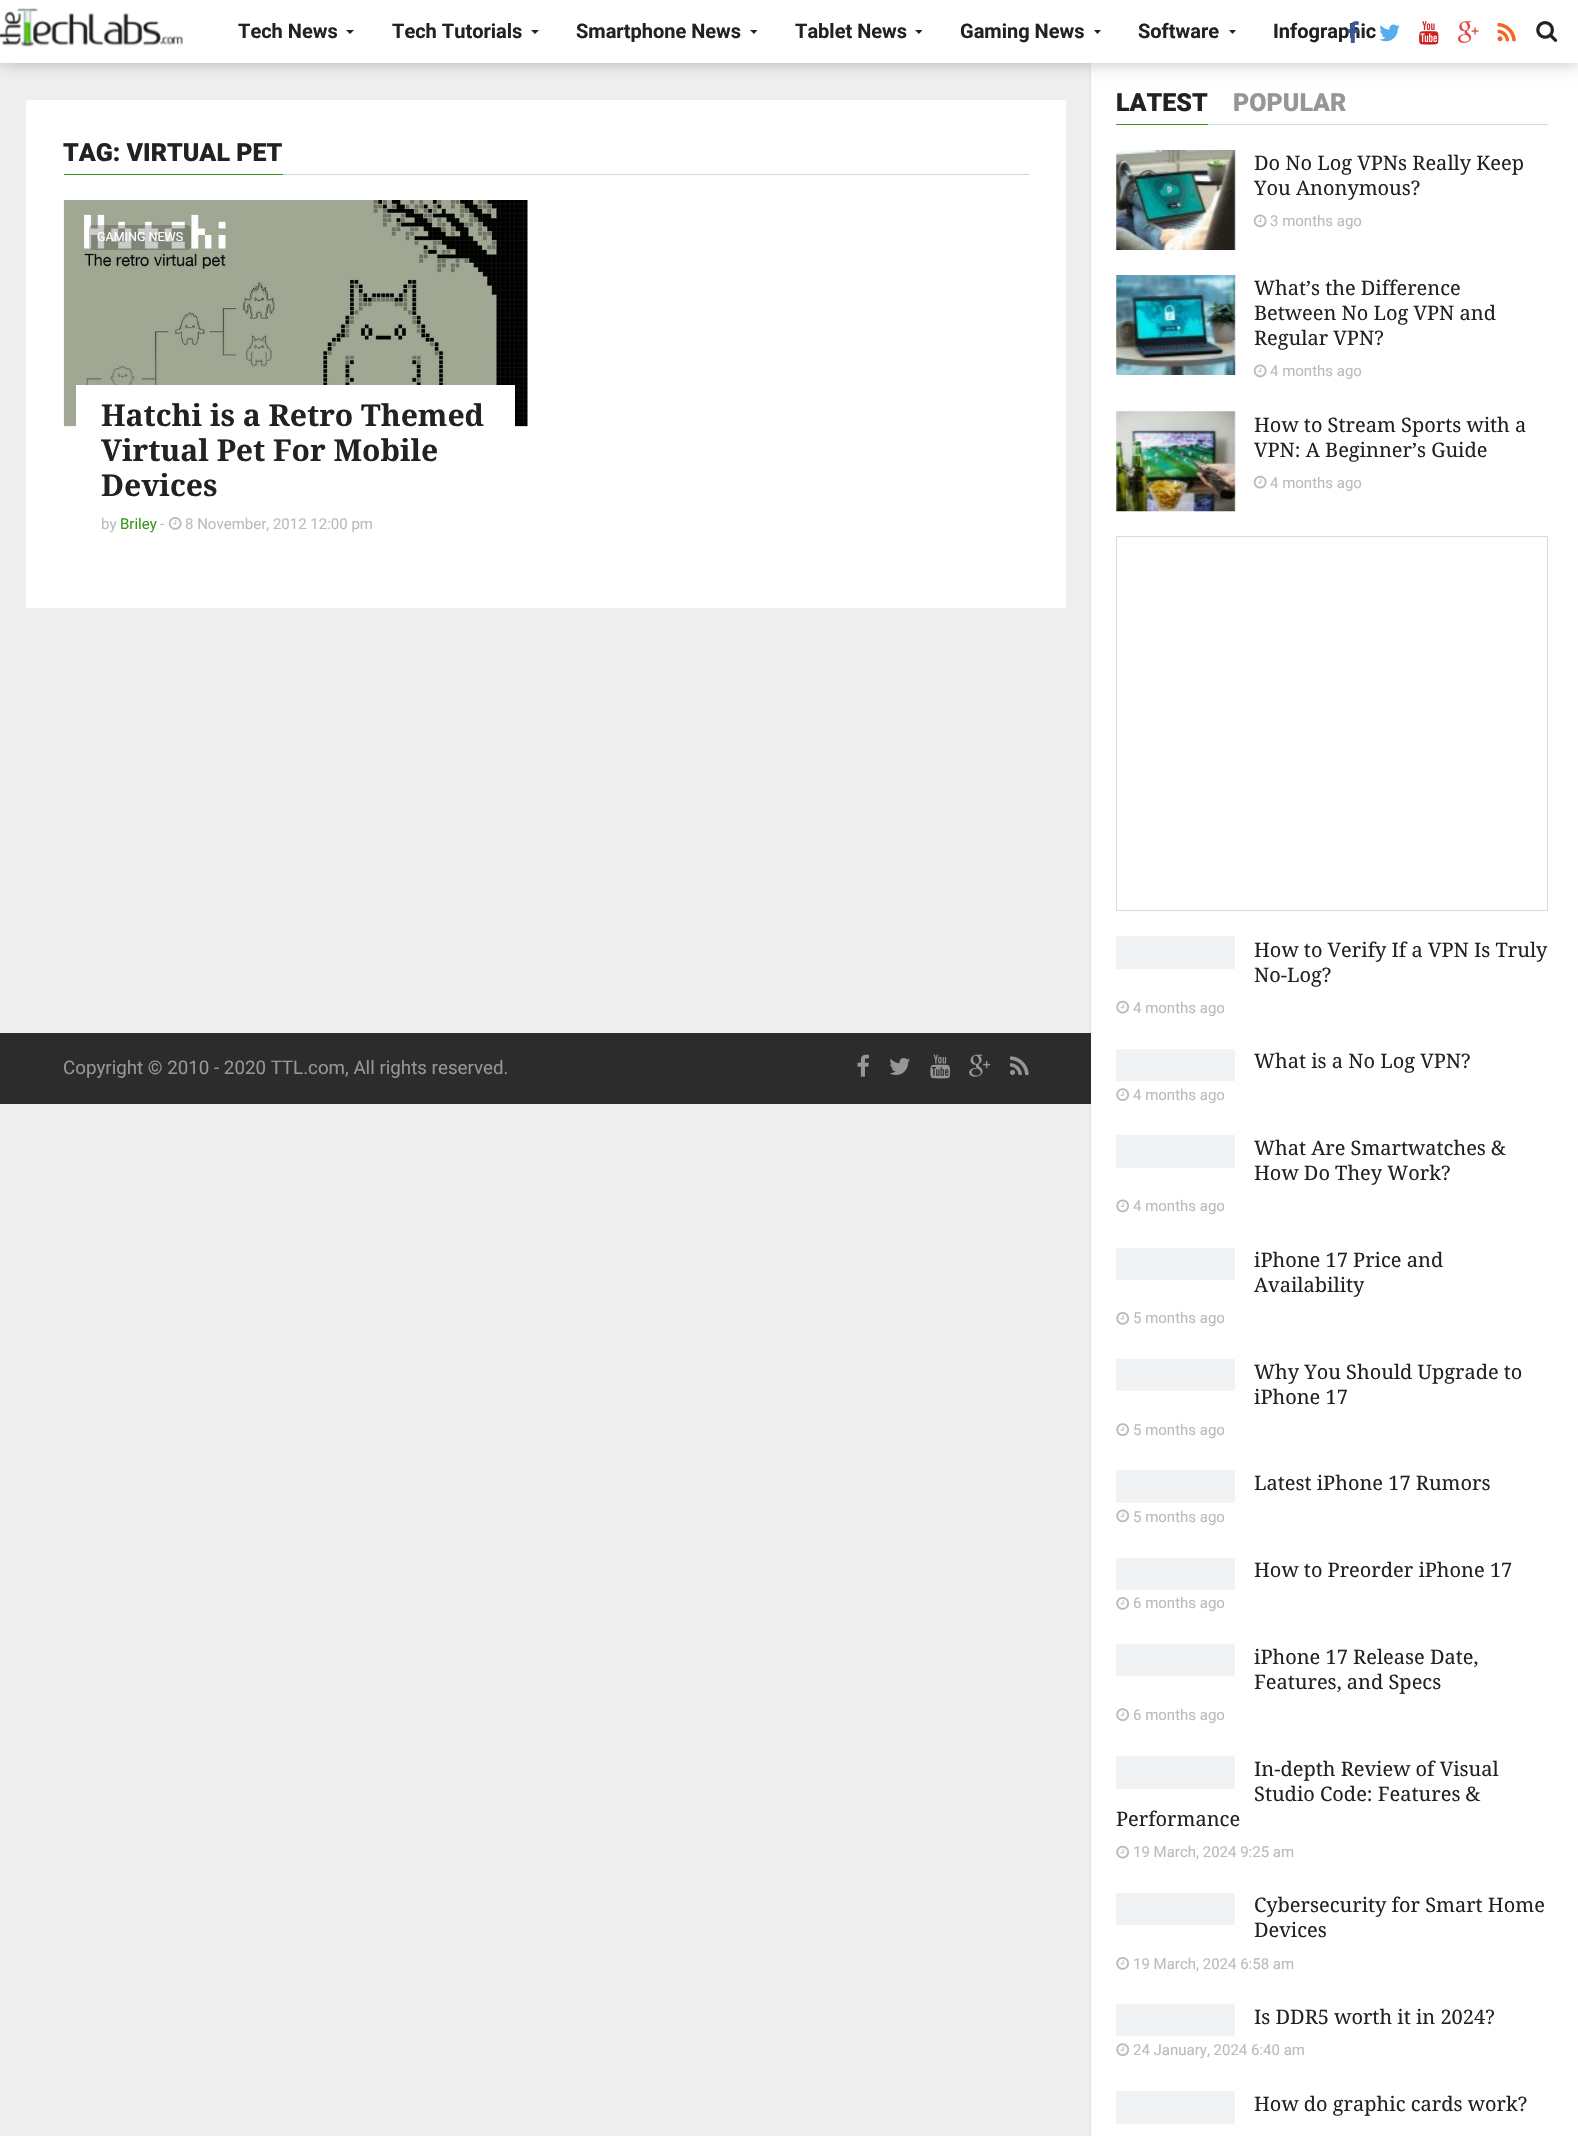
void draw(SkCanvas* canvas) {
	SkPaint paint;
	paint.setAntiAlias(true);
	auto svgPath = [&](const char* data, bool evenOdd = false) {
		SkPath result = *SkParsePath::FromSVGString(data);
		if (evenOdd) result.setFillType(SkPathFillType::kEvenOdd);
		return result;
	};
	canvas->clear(0xffefefef);
	paint.setColor(0xff2c2c2c);
	canvas->drawRect(SkRect::MakeXYWH(0, 1033, 1091, 71), paint);
	paint.setColor(0x26000000);
	paint.setMaskFilter(SkMaskFilter::MakeBlur(kNormal_SkBlurStyle, 1));
	canvas->drawRect(SkRect::MakeXYWH(1091, 66, 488, 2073), paint);
	paint.setMaskFilter(nullptr);
	paint.setColor(0xffffffff);
	canvas->drawRect(SkRect::MakeXYWH(1091, 63, 487, 2073), paint);
	paint.setColor(0x40000000);
	paint.setMaskFilter(SkMaskFilter::MakeBlur(kNormal_SkBlurStyle, 8));
	canvas->drawRect(SkRect::MakeXYWH(0, 0, 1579, 63), paint);
	paint.setMaskFilter(nullptr);
	paint.setColor(0xffffffff);
	canvas->drawRect(SkRect::MakeXYWH(0, 0, 1578, 63), paint);
	canvas->drawImageRect(SkImages::DeferredFromEncodedData(SkData::MakeFromFileName("img1.png")), SkRect::MakeXYWH(0, 8, 183, 39), SkSamplingOptions());
	SkFont f1(fontMgr->matchFamilyStyle("Roboto", SkFontStyle::Bold()), 20);
	f1.setSubpixel(true);
	paint.setColor(0xff222222);
	canvas->drawString("Tech News", 238, 38, f1, paint);
	canvas->drawPath(svgPath("M346 30H354L350 34Z"), paint);
	canvas->drawString("Tech Tutorials", 392, 38, f1, paint);
	canvas->drawPath(svgPath("M531 30H539L535 34Z"), paint);
	canvas->drawString("Smartphone News", 576, 38, f1, paint);
	canvas->drawPath(svgPath("M750 30H757.5L754 34Z"), paint);
	canvas->drawString("Tablet News", 795, 38, f1, paint);
	canvas->drawPath(svgPath("M915 30H922.5L919 34Z"), paint);
	canvas->drawString("Gaming News", 960, 38, f1, paint);
	canvas->drawPath(svgPath("M1094 30H1101L1097.5 34Z"), paint);
	canvas->drawString("Software", 1138, 38, f1, paint);
	canvas->drawPath(svgPath("M1229 30H1236L1232.5 34Z"), paint);
	canvas->drawString("Infographic", 1273, 38, f1, paint);
	canvas->drawImageRect(SkImages::DeferredFromEncodedData(SkData::MakeFromFileName("img2.png")), SkRect::MakeXYWH(1347, 21, 12, 22), SkSamplingOptions());
	canvas->drawImageRect(SkImages::DeferredFromEncodedData(SkData::MakeFromFileName("img3.png")), SkRect::MakeXYWH(1379, 24, 21, 18), SkSamplingOptions());
	canvas->drawImageRect(SkImages::DeferredFromEncodedData(SkData::MakeFromFileName("img4.png")), SkRect::MakeXYWH(1419, 21, 20, 24), SkSamplingOptions());
	canvas->drawImageRect(SkImages::DeferredFromEncodedData(SkData::MakeFromFileName("img5.png")), SkRect::MakeXYWH(1457, 21, 22, 22), SkSamplingOptions());
	canvas->drawImageRect(SkImages::DeferredFromEncodedData(SkData::MakeFromFileName("img6.png")), SkRect::MakeXYWH(1497, 22, 19, 20), SkSamplingOptions());
	canvas->drawImageRect(SkImages::DeferredFromEncodedData(SkData::MakeFromFileName("img7.png")), SkRect::MakeXYWH(1536, 21, 22, 21), SkSamplingOptions());
	paint.setColor(0xffffffff);
	canvas->drawRect(SkRect::MakeXYWH(26, 100, 1040, 508), paint);
	paint.setColor(0xffd6d6d6);
	canvas->drawRect(SkRect::MakeXYWH(283, 174, 746, 1), paint);
	paint.setColor(0xff38971b);
	canvas->drawRect(SkRect::MakeXYWH(64, 174, 219, 1), paint);
	SkFont f2(fontMgr->matchFamilyStyle("Roboto", SkFontStyle(900, SkFontStyle::kNormal_Width, SkFontStyle::kUpright_Slant)), 25);
	f2.setSubpixel(true);
	paint.setColor(0xff222222);
	canvas->drawString("TAG: VIRTUAL PET", 63, 161, f2, paint);
	paint.setColor(0xfff1f2f4);
	canvas->drawRect(SkRect::MakeXYWH(527, 200, 1, 226), paint);
	canvas->drawImageRect(SkImages::DeferredFromEncodedData(SkData::MakeFromFileName("img8.png")), SkRect::MakeXYWH(63, 200, 465, 227), SkSamplingOptions());
	paint.setColor(0x33000000);
	canvas->drawRoundRect(SkRect::MakeXYWH(89, 225, 102, 25), 4, 4, paint);
	SkFont f3(fontMgr->matchFamilyStyle("Roboto", SkFontStyle::Normal()), 12.5);
	f3.setSubpixel(true);
	paint.setColor(0xffffffff);
	canvas->drawString("GAMING NEWS", 97, 241, f3, paint);
	canvas->drawRect(SkRect::MakeXYWH(76, 385, 439, 42), paint);
	SkFont f4(fontMgr->matchFamilyStyle("Noto Serif", SkFontStyle::Bold()), 30);
	f4.setSubpixel(true);
	paint.setColor(0xff222222);
	canvas->drawString("Hatchi is a Retro Themed", 101, 426, f4, paint);
	canvas->drawString("Virtual Pet For Mobile", 101, 461, f4, paint);
	canvas->drawString("Devices", 101, 496, f4, paint);
	SkFont f5(fontMgr->matchFamilyStyle("Roboto", SkFontStyle::Normal()), 15);
	f5.setSubpixel(true);
	paint.setColor(0xffbbbbbb);
	canvas->drawString("by", 101, 529, f5, paint);
	paint.setColor(0xff38971b);
	canvas->drawString("Briley", 120, 529, f5, paint);
	paint.setColor(0xffbbbbbb);
	canvas->drawString("-", 160, 529, f5, paint);
	canvas->drawImageRect(SkImages::DeferredFromEncodedData(SkData::MakeFromFileName("img9.png")), SkRect::MakeXYWH(168, 517, 14, 13), SkSamplingOptions());
	canvas->drawString("8 November, 2012 12:00 pm", 185, 529, f5, paint);
	SkFont f6(fontMgr->matchFamilyStyle("Roboto", SkFontStyle::Normal()), 18.75);
	f6.setSubpixel(true);
	paint.setColor(0xff969696);
	canvas->drawString("Copyright © 2010 - 2020 TTL.com, All rights reserved.", 63, 1074, f6, paint);
	canvas->drawImageRect(SkImages::DeferredFromEncodedData(SkData::MakeFromFileName("img10.png")), SkRect::MakeXYWH(857, 1054, 12, 23), SkSamplingOptions());
	canvas->drawImageRect(SkImages::DeferredFromEncodedData(SkData::MakeFromFileName("img11.png")), SkRect::MakeXYWH(889, 1058, 21, 17), SkSamplingOptions());
	canvas->drawImageRect(SkImages::DeferredFromEncodedData(SkData::MakeFromFileName("img12.png")), SkRect::MakeXYWH(930, 1054, 20, 25), SkSamplingOptions());
	canvas->drawImageRect(SkImages::DeferredFromEncodedData(SkData::MakeFromFileName("img13.png")), SkRect::MakeXYWH(969, 1054, 22, 23), SkSamplingOptions());
	canvas->drawImageRect(SkImages::DeferredFromEncodedData(SkData::MakeFromFileName("img14.png")), SkRect::MakeXYWH(1010, 1056, 19, 19), SkSamplingOptions());
	paint.setColor(0xffdadada);
	canvas->drawRect(SkRect::MakeXYWH(1208, 124, 340, 1), paint);
	paint.setColor(0xff38971b);
	canvas->drawRect(SkRect::MakeXYWH(1116, 124, 92, 1), paint);
	paint.setColor(0xff222222);
	canvas->drawString("LATEST", 1116, 111, f2, paint);
	paint.setColor(0xff969696);
	canvas->drawString("POPULAR", 1233, 111, f2, paint);
	canvas->drawImageRect(SkImages::DeferredFromEncodedData(SkData::MakeFromFileName("img15.png")), SkRect::MakeXYWH(1116, 150, 120, 100), SkSamplingOptions());
	SkFont f7(fontMgr->matchFamilyStyle("Noto Serif", SkFontStyle::Normal()), 20);
	f7.setSubpixel(true);
	paint.setColor(0xff222222);
	canvas->drawString("Do No Log VPNs Really Keep", 1254, 170, f7, paint);
	canvas->drawString("You Anonymous?", 1254, 195, f7, paint);
	canvas->drawImageRect(SkImages::DeferredFromEncodedData(SkData::MakeFromFileName("img16.png")), SkRect::MakeXYWH(1253, 214, 14, 14), SkSamplingOptions());
	paint.setColor(0xffbbbbbb);
	canvas->drawString("3 months ago", 1270, 226, f5, paint);
	canvas->drawImageRect(SkImages::DeferredFromEncodedData(SkData::MakeFromFileName("img17.png")), SkRect::MakeXYWH(1116, 275, 120, 100), SkSamplingOptions());
	paint.setColor(0xff222222);
	canvas->drawString("What’s the Difference", 1254, 295, f7, paint);
	canvas->drawString("Between No Log VPN and", 1254, 320, f7, paint);
	canvas->drawString("Regular VPN?", 1254, 345, f7, paint);
	canvas->drawImageRect(SkImages::DeferredFromEncodedData(SkData::MakeFromFileName("img16.png")), SkRect::MakeXYWH(1253, 364, 14, 14), SkSamplingOptions());
	paint.setColor(0xffbbbbbb);
	canvas->drawString("4 months ago", 1270, 376, f5, paint);
	paint.setColor(0xfff1f2f4);
	canvas->drawRect(SkRect::MakeXYWH(1116, 411, 119, 100), paint);
	canvas->drawImageRect(SkImages::DeferredFromEncodedData(SkData::MakeFromFileName("img18.png")), SkRect::MakeXYWH(1116, 411, 120, 101), SkSamplingOptions());
	paint.setColor(0xff222222);
	canvas->drawString("How to Stream Sports with a", 1254, 432, f7, paint);
	canvas->drawString("VPN: A Beginner’s Guide", 1254, 457, f7, paint);
	canvas->drawImageRect(SkImages::DeferredFromEncodedData(SkData::MakeFromFileName("img19.png")), SkRect::MakeXYWH(1253, 475, 14, 14), SkSamplingOptions());
	paint.setColor(0xffbbbbbb);
	canvas->drawString("4 months ago", 1270, 488, f5, paint);
	paint.setStroke(true);
	paint.setStrokeWidth(1);
	paint.setColor(0xffdadada);
	canvas->drawRect(SkRect::MakeXYWH(1116.5, 536.5, 431, 374), paint);
	paint.setStroke(false);
	paint.setColor(0xfff1f2f4);
	canvas->drawRect(SkRect::MakeXYWH(1116, 936, 119, 33), paint);
	paint.setColor(0xff222222);
	canvas->drawString("How to Verify If a VPN Is Truly", 1254, 957, f7, paint);
	canvas->drawString("No-Log?", 1254, 982, f7, paint);
	canvas->drawImageRect(SkImages::DeferredFromEncodedData(SkData::MakeFromFileName("img20.png")), SkRect::MakeXYWH(1116, 1000, 13, 14), SkSamplingOptions());
	paint.setColor(0xffbbbbbb);
	canvas->drawString("4 months ago", 1133, 1013, f5, paint);
	paint.setColor(0xfff1f2f4);
	canvas->drawRect(SkRect::MakeXYWH(1116, 1049, 119, 32), paint);
	paint.setColor(0xff222222);
	canvas->drawString("What is a No Log VPN?", 1254, 1068, f7, paint);
	canvas->drawImageRect(SkImages::DeferredFromEncodedData(SkData::MakeFromFileName("img21.png")), SkRect::MakeXYWH(1116, 1088, 14, 13), SkSamplingOptions());
	paint.setColor(0xffbbbbbb);
	canvas->drawString("4 months ago", 1133, 1100, f5, paint);
	paint.setColor(0xfff1f2f4);
	canvas->drawRect(SkRect::MakeXYWH(1116, 1135, 119, 33), paint);
	paint.setColor(0xff222222);
	canvas->drawString("What Are Smartwatches &", 1254, 1155, f7, paint);
	canvas->drawString("How Do They Work?", 1254, 1180, f7, paint);
	canvas->drawImageRect(SkImages::DeferredFromEncodedData(SkData::MakeFromFileName("img22.png")), SkRect::MakeXYWH(1116, 1199, 13, 14), SkSamplingOptions());
	paint.setColor(0xffbbbbbb);
	canvas->drawString("4 months ago", 1133, 1211, f5, paint);
	paint.setColor(0xfff1f2f4);
	canvas->drawRect(SkRect::MakeXYWH(1116, 1248, 119, 32), paint);
	paint.setColor(0xff222222);
	canvas->drawString("iPhone 17 Price and", 1254, 1267, f7, paint);
	canvas->drawString("Availability", 1254, 1292, f7, paint);
	canvas->drawImageRect(SkImages::DeferredFromEncodedData(SkData::MakeFromFileName("img23.png")), SkRect::MakeXYWH(1116, 1312, 14, 13), SkSamplingOptions());
	paint.setColor(0xffbbbbbb);
	canvas->drawString("5 months ago", 1133, 1323, f5, paint);
	paint.setColor(0xfff1f2f4);
	canvas->drawRect(SkRect::MakeXYWH(1116, 1359, 119, 32), paint);
	paint.setColor(0xff222222);
	canvas->drawString("Why You Should Upgrade to", 1254, 1379, f7, paint);
	canvas->drawString("iPhone 17", 1254, 1404, f7, paint);
	canvas->drawImageRect(SkImages::DeferredFromEncodedData(SkData::MakeFromFileName("img21.png")), SkRect::MakeXYWH(1116, 1423, 14, 13), SkSamplingOptions());
	paint.setColor(0xffbbbbbb);
	canvas->drawString("5 months ago", 1133, 1435, f5, paint);
	paint.setColor(0xfff1f2f4);
	canvas->drawRect(SkRect::MakeXYWH(1116, 1470, 119, 33), paint);
	paint.setColor(0xff222222);
	canvas->drawString("Latest iPhone 17 Rumors", 1254, 1490, f7, paint);
	canvas->drawImageRect(SkImages::DeferredFromEncodedData(SkData::MakeFromFileName("img22.png")), SkRect::MakeXYWH(1116, 1509, 13, 14), SkSamplingOptions());
	paint.setColor(0xffbbbbbb);
	canvas->drawString("5 months ago", 1133, 1522, f5, paint);
	paint.setColor(0xfff1f2f4);
	canvas->drawRect(SkRect::MakeXYWH(1116, 1558, 119, 32), paint);
	paint.setColor(0xff222222);
	canvas->drawString("How to Preorder iPhone 17", 1254, 1577, f7, paint);
	canvas->drawImageRect(SkImages::DeferredFromEncodedData(SkData::MakeFromFileName("img23.png")), SkRect::MakeXYWH(1116, 1597, 14, 13), SkSamplingOptions());
	paint.setColor(0xffbbbbbb);
	canvas->drawString("6 months ago", 1133, 1608, f5, paint);
	paint.setColor(0xfff1f2f4);
	canvas->drawRect(SkRect::MakeXYWH(1116, 1644, 119, 32), paint);
	paint.setColor(0xff222222);
	canvas->drawString("iPhone 17 Release Date,", 1254, 1664, f7, paint);
	canvas->drawString("Features, and Specs", 1254, 1689, f7, paint);
	canvas->drawImageRect(SkImages::DeferredFromEncodedData(SkData::MakeFromFileName("img21.png")), SkRect::MakeXYWH(1116, 1708, 14, 13), SkSamplingOptions());
	paint.setColor(0xffbbbbbb);
	canvas->drawString("6 months ago", 1133, 1720, f5, paint);
	paint.setColor(0xfff1f2f4);
	canvas->drawRect(SkRect::MakeXYWH(1116, 1756, 119, 33), paint);
	paint.setColor(0xff222222);
	canvas->drawString("In-depth Review of Visual", 1254, 1776, f7, paint);
	canvas->drawString("Studio Code: Features &", 1254, 1801, f7, paint);
	canvas->drawString("Performance", 1116, 1826, f7, paint);
	canvas->drawImageRect(SkImages::DeferredFromEncodedData(SkData::MakeFromFileName("img20.png")), SkRect::MakeXYWH(1116, 1845, 13, 14), SkSamplingOptions());
	paint.setColor(0xffbbbbbb);
	canvas->drawString("19 March, 2024 9:25 am", 1133, 1857, f5, paint);
	paint.setColor(0xfff1f2f4);
	canvas->drawRect(SkRect::MakeXYWH(1116, 1893, 119, 32), paint);
	paint.setColor(0xff222222);
	canvas->drawString("Cybersecurity for Smart Home", 1254, 1912, f7, paint);
	canvas->drawString("Devices", 1254, 1937, f7, paint);
	canvas->drawImageRect(SkImages::DeferredFromEncodedData(SkData::MakeFromFileName("img23.png")), SkRect::MakeXYWH(1116, 1957, 14, 13), SkSamplingOptions());
	paint.setColor(0xffbbbbbb);
	canvas->drawString("19 March, 2024 6:58 am", 1133, 1969, f5, paint);
	paint.setColor(0xfff1f2f4);
	canvas->drawRect(SkRect::MakeXYWH(1116, 2004, 119, 32), paint);
	paint.setColor(0xff222222);
	canvas->drawString("Is DDR5 worth it in 2024?", 1254, 2024, f7, paint);
	canvas->drawImageRect(SkImages::DeferredFromEncodedData(SkData::MakeFromFileName("img21.png")), SkRect::MakeXYWH(1116, 2043, 14, 13), SkSamplingOptions());
	paint.setColor(0xffbbbbbb);
	canvas->drawString("24 January, 2024 6:40 am", 1133, 2055, f5, paint);
	paint.setColor(0xfff1f2f4);
	canvas->drawRect(SkRect::MakeXYWH(1116, 2091, 119, 33), paint);
	paint.setColor(0xff222222);
	canvas->drawString("How do graphic cards work?", 1254, 2111, f7, paint);
}
